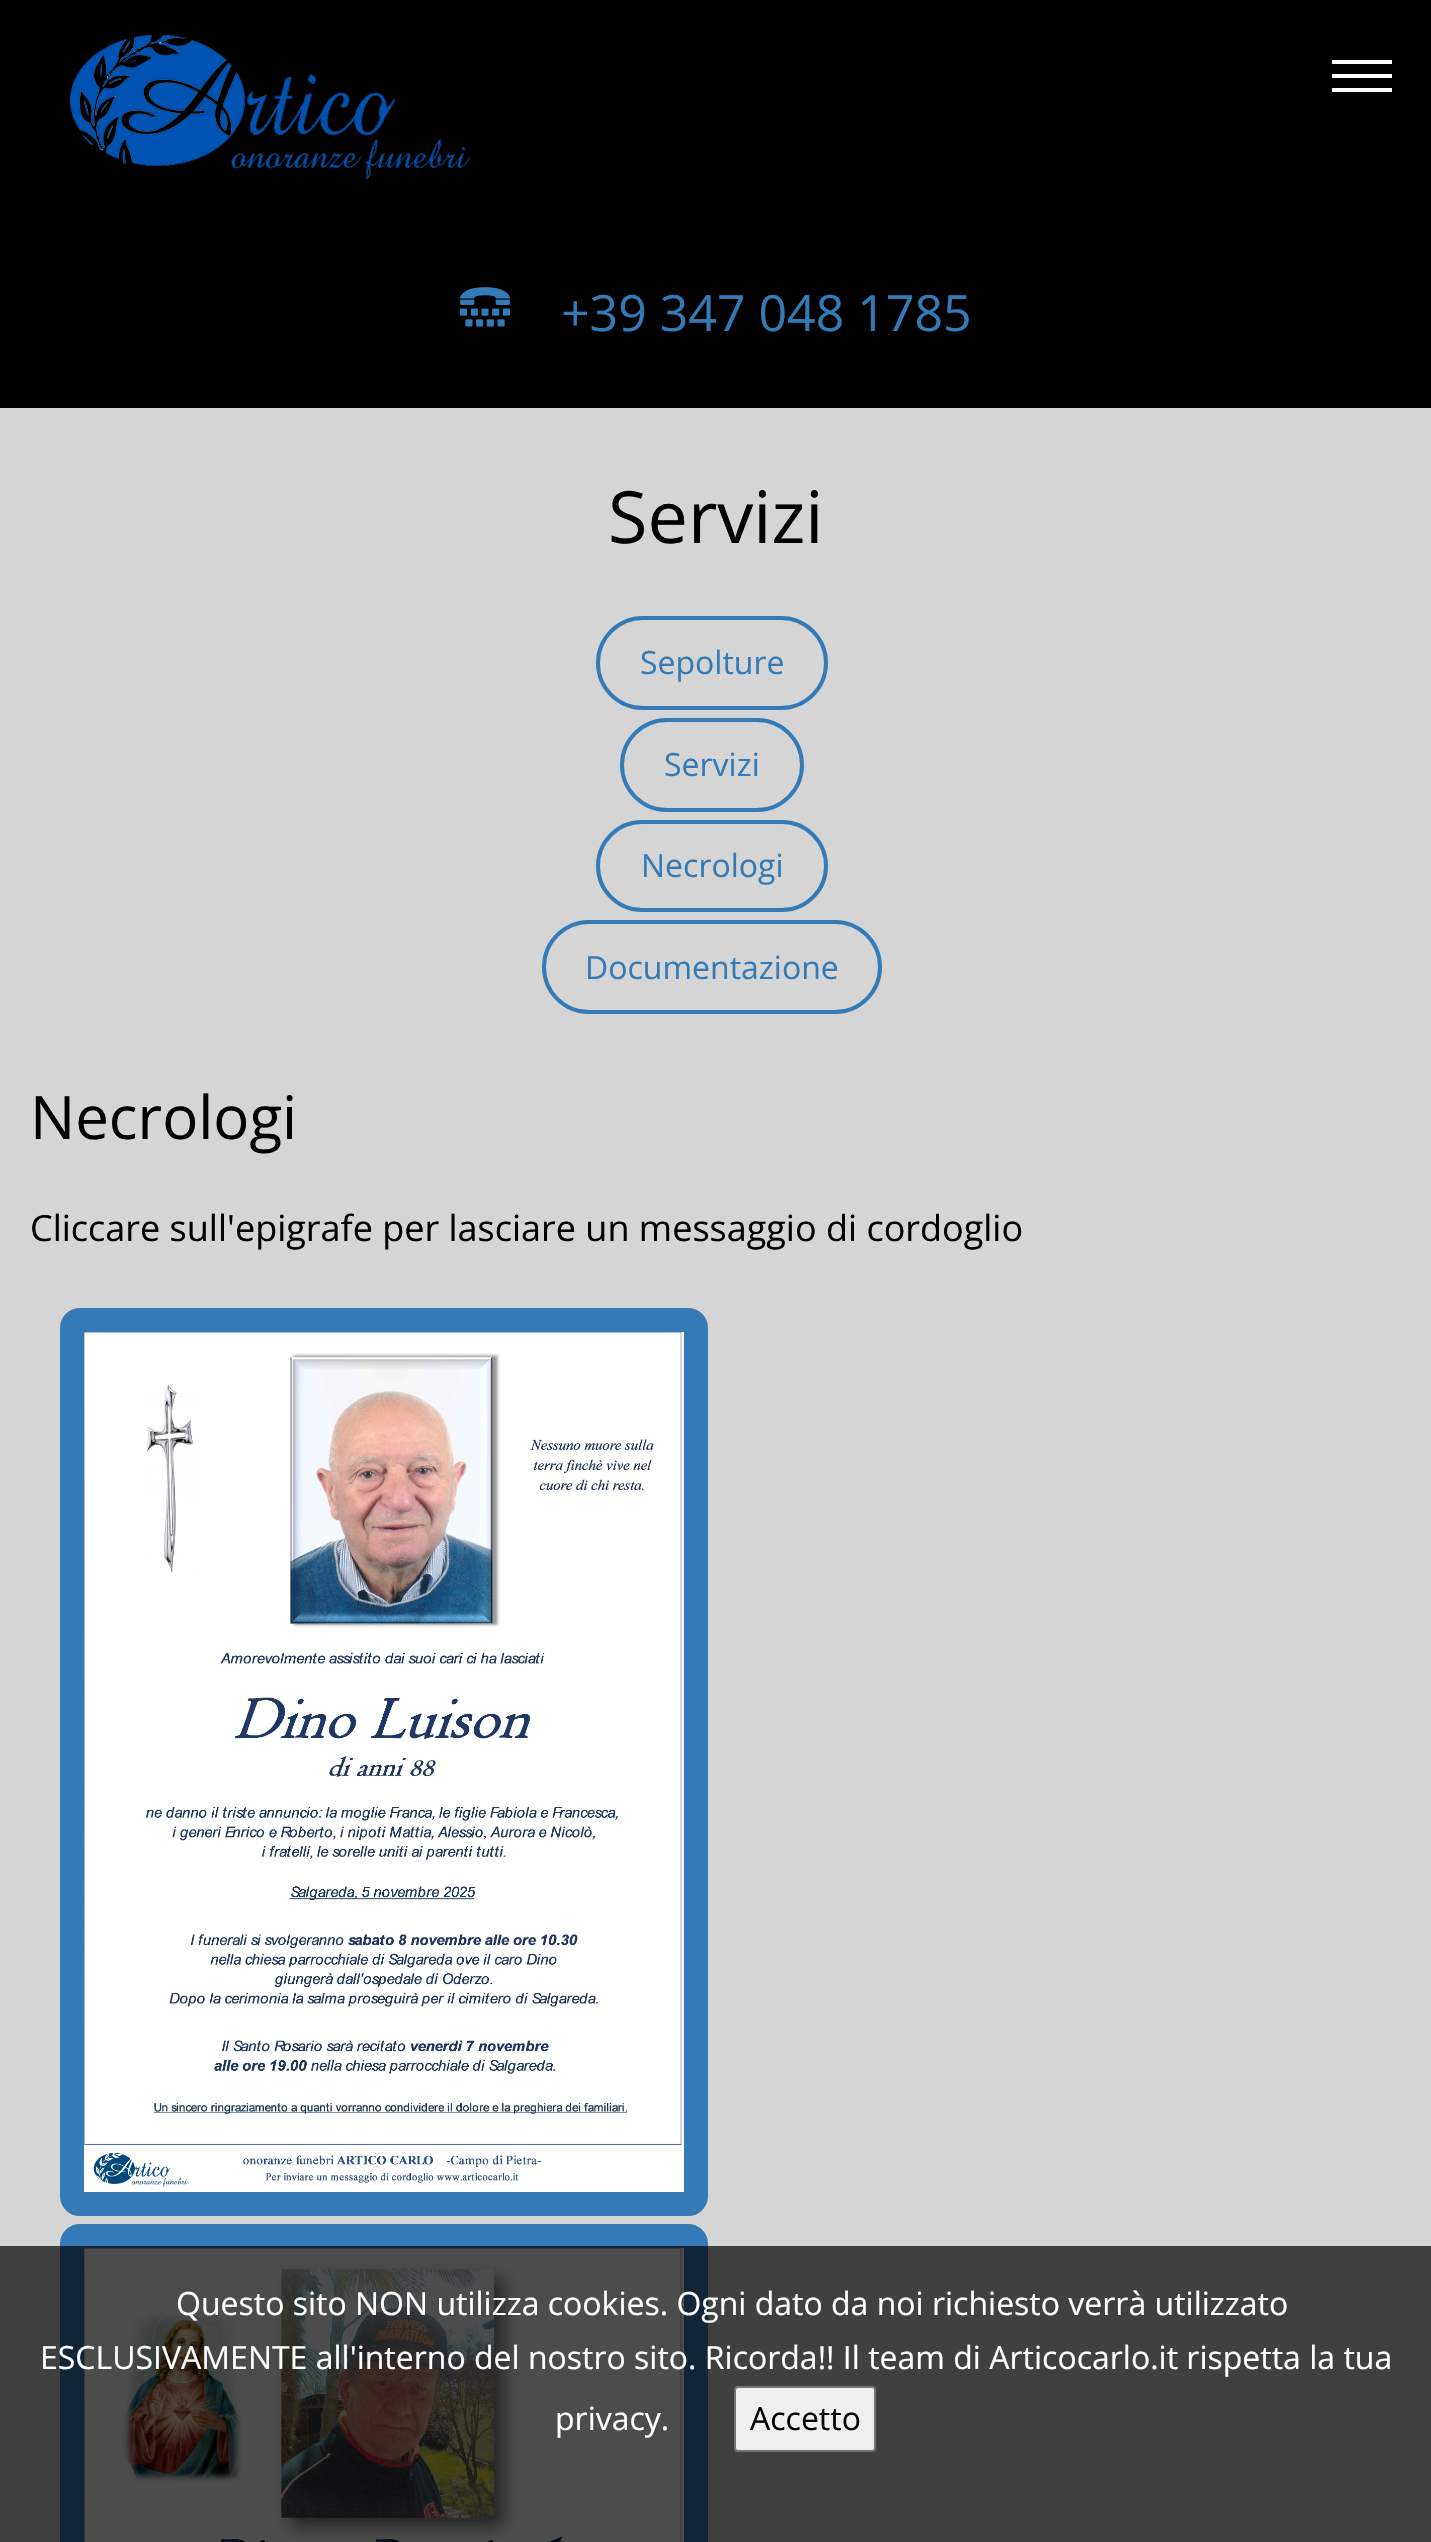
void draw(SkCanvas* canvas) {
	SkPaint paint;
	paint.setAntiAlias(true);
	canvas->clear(0xffd5d5d5);
	paint.setColor(0xff000000);
	canvas->drawRect(SkRect::MakeXYWH(0, 0, 1431, 408), paint);
	paint.setColor(0xffffffff);
	canvas->drawRect(SkRect::MakeXYWH(1332, 74, 60, 4), paint);
	canvas->drawRect(SkRect::MakeXYWH(1332, 60, 60, 4), paint);
	canvas->drawRect(SkRect::MakeXYWH(1332, 88, 60, 4), paint);
	canvas->drawImageRect(SkImages::DeferredFromEncodedData(SkData::MakeFromFileName("img1.png")), SkRect::MakeXYWH(70, 34, 400, 146), SkSamplingOptions());
	canvas->drawImageRect(SkImages::DeferredFromEncodedData(SkData::MakeFromFileName("img2.png")), SkRect::MakeXYWH(460, 287, 50, 40), SkSamplingOptions());
	SkFont f1(fontMgr->matchFamilyStyle("Open Sans", SkFontStyle::Normal()), 50);
	f1.setSubpixel(true);
	paint.setColor(0xff337ab7);
	canvas->drawString("+39 347 048 1785", 561, 331, f1, paint);
	SkFont f2(fontMgr->matchFamilyStyle("Open Sans", SkFontStyle::Normal()), 72);
	f2.setSubpixel(true);
	paint.setColor(0xff000000);
	canvas->drawString("Servizi", 608, 543, f2, paint);
	paint.setStroke(true);
	paint.setStrokeWidth(4);
	paint.setColor(0xff337ab7);
	canvas->drawRoundRect(SkRect::MakeXYWH(598, 618, 228, 90), 45, 45, paint);
	SkFont f3(fontMgr->matchFamilyStyle("Open Sans", SkFontStyle::Normal()), 32);
	f3.setSubpixel(true);
	paint.setStroke(false);
	canvas->drawString("Sepolture", 640, 674, f3, paint);
	paint.setStroke(true);
	canvas->drawRoundRect(SkRect::MakeXYWH(622, 720, 180, 90), 45, 45, paint);
	paint.setStroke(false);
	canvas->drawString("Servizi", 664, 776, f3, paint);
	paint.setStroke(true);
	canvas->drawRoundRect(SkRect::MakeXYWH(598, 822, 228, 88), 44, 44, paint);
	paint.setStroke(false);
	canvas->drawString("Necrologi", 641, 877, f3, paint);
	paint.setStroke(true);
	canvas->drawRoundRect(SkRect::MakeXYWH(544, 922, 336, 90), 45, 45, paint);
	paint.setStroke(false);
	canvas->drawString("Documentazione", 585, 979, f3, paint);
	SkFont f4(fontMgr->matchFamilyStyle("Open Sans", SkFontStyle::Normal()), 60);
	f4.setSubpixel(true);
	paint.setColor(0xff000000);
	canvas->drawString("Necrologi", 30, 1139, f4, paint);
	SkFont f5(fontMgr->matchFamilyStyle("Open Sans", SkFontStyle::Normal()), 36);
	f5.setSubpixel(true);
	canvas->drawString("Cliccare sull'epigrafe per lasciare un messaggio di cordoglio", 30, 1241, f5, paint);
	paint.setColor(0xff337ab7);
	canvas->drawRoundRect(SkRect::MakeXYWH(62, 1310, 644, 904), 18, 18, paint);
	paint.setStroke(true);
	canvas->drawRoundRect(SkRect::MakeXYWH(62, 1310, 644, 904), 18, 18, paint);
	canvas->drawImageRect(SkImages::DeferredFromEncodedData(SkData::MakeFromFileName("img3.png")), SkRect::MakeXYWH(84, 1332, 600, 860), SkSamplingOptions());
	paint.setStroke(false);
	canvas->drawRoundRect(SkRect::MakeXYWH(62, 2226, 644, 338), 18, 18, paint);
	paint.setStroke(true);
	canvas->drawRoundRect(SkRect::MakeXYWH(62, 2226, 644, 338), 18, 18, paint);
	canvas->drawImageRect(SkImages::DeferredFromEncodedData(SkData::MakeFromFileName("img4.png")), SkRect::MakeXYWH(84, 2248, 600, 294), SkSamplingOptions());
	paint.setStroke(false);
	paint.setColor(0xb3000000);
	canvas->drawRect(SkRect::MakeXYWH(0, 2246, 1431, 296), paint);
	paint.setColor(0xffffffff);
	canvas->drawString("Questo sito NON utilizza cookies. Ogni dato da noi richiesto verrà utilizzato", 176, 2315, f3, paint);
	canvas->drawString("ESCLUSIVAMENTE all'interno del nostro sito. Ricorda!! Il team di Articocarlo.it rispetta la tua", 40, 2369, f3, paint);
	canvas->drawString("privacy.", 555, 2430, f3, paint);
	paint.setColor(0xffefefef);
	canvas->drawRoundRect(SkRect::MakeXYWH(735, 2387, 140, 64), 3, 3, paint);
	paint.setStroke(true);
	paint.setStrokeWidth(2);
	paint.setColor(0xff767676);
	canvas->drawRoundRect(SkRect::MakeXYWH(735, 2387, 140, 64), 3, 3, paint);
	paint.setStroke(false);
	paint.setColor(0xff000000);
	canvas->drawString("Accetto", 750, 2430, f3, paint);
}
